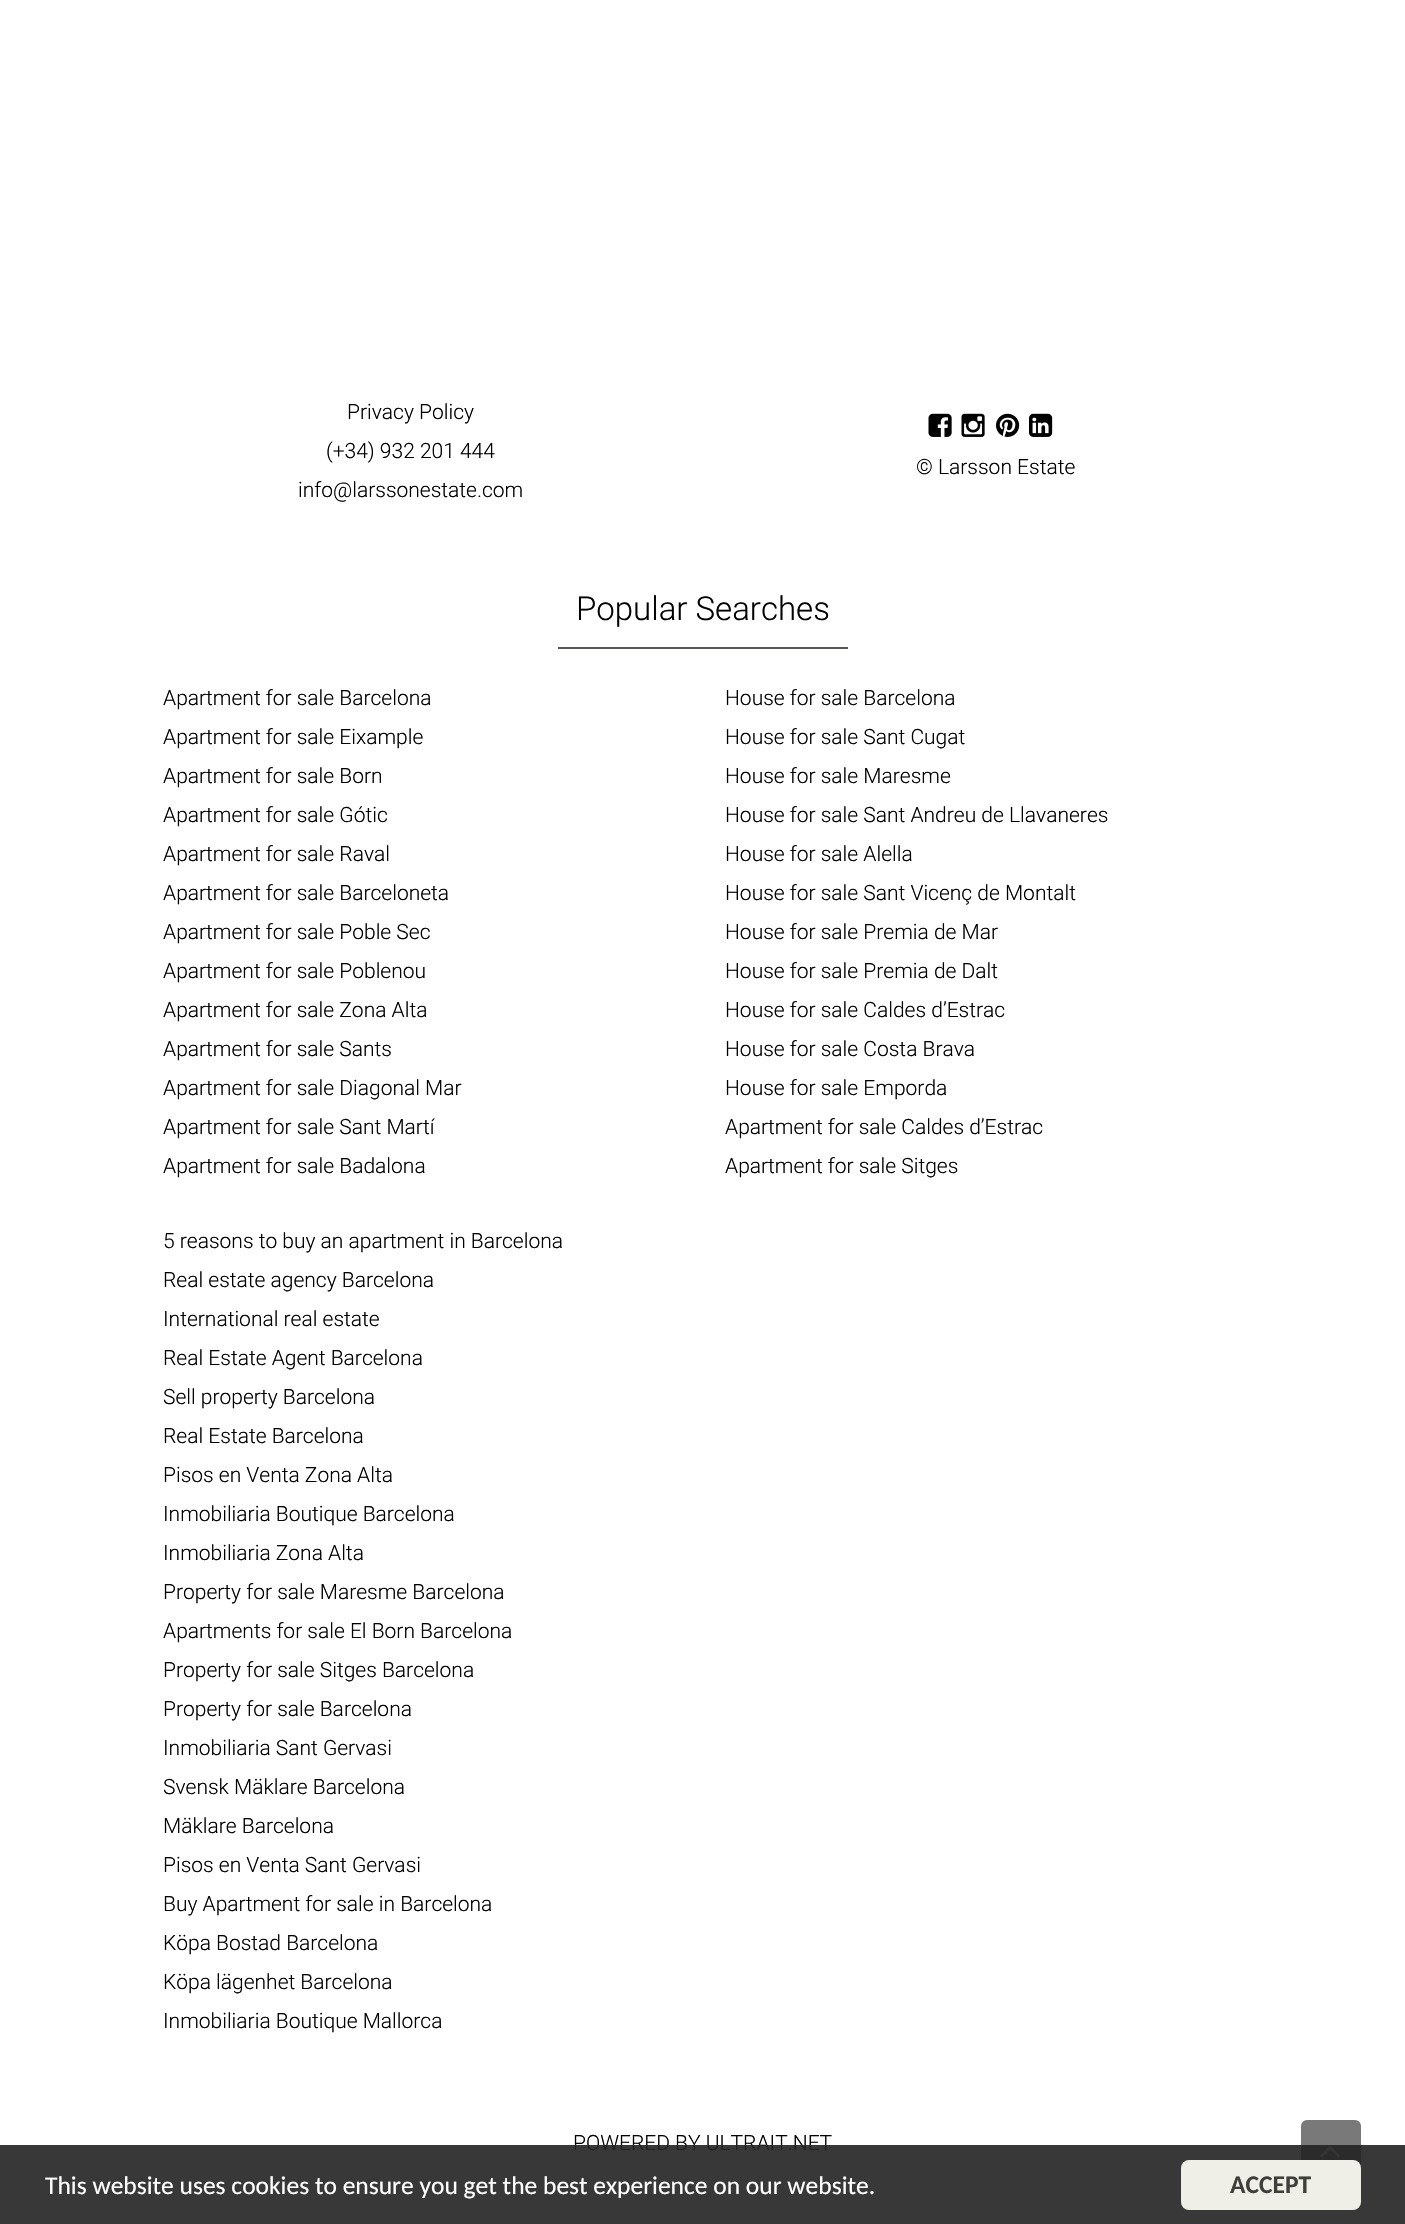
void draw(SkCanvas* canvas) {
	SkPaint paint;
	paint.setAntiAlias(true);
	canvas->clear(0xffffffff);
	SkFont f1(fontMgr->matchFamilyStyle("Roboto", SkFontStyle(300, SkFontStyle::kNormal_Width, SkFontStyle::kUpright_Slant)), 21);
	f1.setSubpixel(true);
	paint.setColor(0xff000000);
	canvas->drawString("Privacy Policy", 347, 419, f1, paint);
	canvas->drawString("(+34) 932 201 444", 326, 458, f1, paint);
	canvas->drawString("info@larssonestate.com", 298, 497, f1, paint);
	canvas->drawImageRect(SkImages::DeferredFromEncodedData(SkData::MakeFromFileName("img1.png")), SkRect::MakeXYWH(928, 413, 24, 24), SkSamplingOptions());
	canvas->drawImageRect(SkImages::DeferredFromEncodedData(SkData::MakeFromFileName("img2.png")), SkRect::MakeXYWH(961, 413, 24, 24), SkSamplingOptions());
	canvas->drawImageRect(SkImages::DeferredFromEncodedData(SkData::MakeFromFileName("img3.png")), SkRect::MakeXYWH(996, 413, 24, 24), SkSamplingOptions());
	canvas->drawImageRect(SkImages::DeferredFromEncodedData(SkData::MakeFromFileName("img4.png")), SkRect::MakeXYWH(1029, 413, 24, 24), SkSamplingOptions());
	canvas->drawString("© Larsson Estate", 916, 474, f1, paint);
	SkFont f2(fontMgr->matchFamilyStyle("Roboto", SkFontStyle(300, SkFontStyle::kNormal_Width, SkFontStyle::kUpright_Slant)), 33);
	f2.setSubpixel(true);
	canvas->drawString("Popular Searches", 576, 620, f2, paint);
	paint.setColor(0xff565653);
	canvas->drawRect(SkRect::MakeXYWH(558, 647, 290, 2), paint);
	paint.setColor(0xff000000);
	canvas->drawString("Apartment for sale Barcelona", 163, 705, f1, paint);
	canvas->drawString("Apartment for sale Eixample", 163, 744, f1, paint);
	canvas->drawString("Apartment for sale Born", 163, 783, f1, paint);
	canvas->drawString("Apartment for sale Gótic", 163, 822, f1, paint);
	canvas->drawString("Apartment for sale Raval", 163, 861, f1, paint);
	canvas->drawString("Apartment for sale Barceloneta", 163, 900, f1, paint);
	canvas->drawString("Apartment for sale Poble Sec", 163, 939, f1, paint);
	canvas->drawString("Apartment for sale Poblenou", 163, 978, f1, paint);
	canvas->drawString("Apartment for sale Zona Alta", 163, 1017, f1, paint);
	canvas->drawString("Apartment for sale Sants", 163, 1056, f1, paint);
	canvas->drawString("Apartment for sale Diagonal Mar", 163, 1095, f1, paint);
	canvas->drawString("Apartment for sale Sant Martí", 163, 1134, f1, paint);
	canvas->drawString("Apartment for sale Badalona", 163, 1173, f1, paint);
	canvas->drawString("House for sale Barcelona", 725, 705, f1, paint);
	canvas->drawString("House for sale Sant Cugat", 725, 744, f1, paint);
	canvas->drawString("House for sale Maresme", 725, 783, f1, paint);
	canvas->drawString("House for sale Sant Andreu de Llavaneres", 725, 822, f1, paint);
	canvas->drawString("House for sale Alella", 725, 861, f1, paint);
	canvas->drawString("House for sale Sant Vicenç de Montalt", 725, 900, f1, paint);
	canvas->drawString("House for sale Premia de Mar", 725, 939, f1, paint);
	canvas->drawString("House for sale Premia de Dalt", 725, 978, f1, paint);
	canvas->drawString("House for sale Caldes d’Estrac", 725, 1017, f1, paint);
	canvas->drawString("House for sale Costa Brava", 725, 1056, f1, paint);
	canvas->drawString("House for sale Emporda", 725, 1095, f1, paint);
	canvas->drawString("Apartment for sale Caldes d’Estrac", 725, 1134, f1, paint);
	canvas->drawString("Apartment for sale Sitges", 725, 1173, f1, paint);
	canvas->drawString("5 reasons to buy an apartment in Barcelona", 163, 1248, f1, paint);
	canvas->drawString("Real estate agency Barcelona", 163, 1287, f1, paint);
	canvas->drawString("International real estate", 163, 1326, f1, paint);
	canvas->drawString("Real Estate Agent Barcelona", 163, 1365, f1, paint);
	canvas->drawString("Sell property Barcelona", 163, 1404, f1, paint);
	canvas->drawString("Real Estate Barcelona", 163, 1443, f1, paint);
	canvas->drawString("Pisos en Venta Zona Alta", 163, 1482, f1, paint);
	canvas->drawString("Inmobiliaria Boutique Barcelona", 163, 1521, f1, paint);
	canvas->drawString("Inmobiliaria Zona Alta", 163, 1560, f1, paint);
	canvas->drawString("Property for sale Maresme Barcelona", 163, 1599, f1, paint);
	canvas->drawString("Apartments for sale El Born Barcelona", 163, 1638, f1, paint);
	canvas->drawString("Property for sale Sitges Barcelona", 163, 1677, f1, paint);
	canvas->drawString("Property for sale Barcelona", 163, 1716, f1, paint);
	canvas->drawString("Inmobiliaria Sant Gervasi", 163, 1755, f1, paint);
	canvas->drawString("Svensk Mäklare Barcelona", 163, 1794, f1, paint);
	canvas->drawString("Mäklare Barcelona", 163, 1833, f1, paint);
	canvas->drawString("Pisos en Venta Sant Gervasi", 163, 1872, f1, paint);
	canvas->drawString("Buy Apartment for sale in Barcelona", 163, 1911, f1, paint);
	canvas->drawString("Köpa Bostad Barcelona", 163, 1950, f1, paint);
	canvas->drawString("Köpa lägenhet Barcelona", 163, 1989, f1, paint);
	canvas->drawString("Inmobiliaria Boutique Mallorca", 163, 2028, f1, paint);
	canvas->drawString("POWERED BY ULTRAIT.NET", 573, 2150, f1, paint);
	paint.setColor(0xff797979);
	canvas->drawRoundRect(SkRect::MakeXYWH(1301, 2120, 60, 60), 6, 6, paint);
	canvas->drawImageRect(SkImages::DeferredFromEncodedData(SkData::MakeFromFileName("img5.png")), SkRect::MakeXYWH(1320, 2146, 20, 12), SkSamplingOptions());
	paint.setColor(0xe6222222);
	canvas->drawRect(SkRect::MakeXYWH(0, 2145, 1405, 79), paint);
	SkFont f3(fontMgr->matchFamilyStyle("Carlito", SkFontStyle::Normal()), 25.5);
	f3.setSubpixel(true);
	paint.setColor(0xffffffff);
	canvas->drawString("This website uses cookies to ensure you get the best experience on our website.", 45, 2194, f3, paint);
	paint.setColor(0xffefefe8);
	canvas->drawRoundRect(SkRect::MakeXYWH(1181, 2160, 180, 50), 8, 8, paint);
	SkFont f4(fontMgr->matchFamilyStyle("Carlito", SkFontStyle::Bold()), 25.5);
	f4.setSubpixel(true);
	paint.setColor(0xff3e3e3b);
	canvas->drawString("ACCEPT", 1230, 2193, f4, paint);
}
